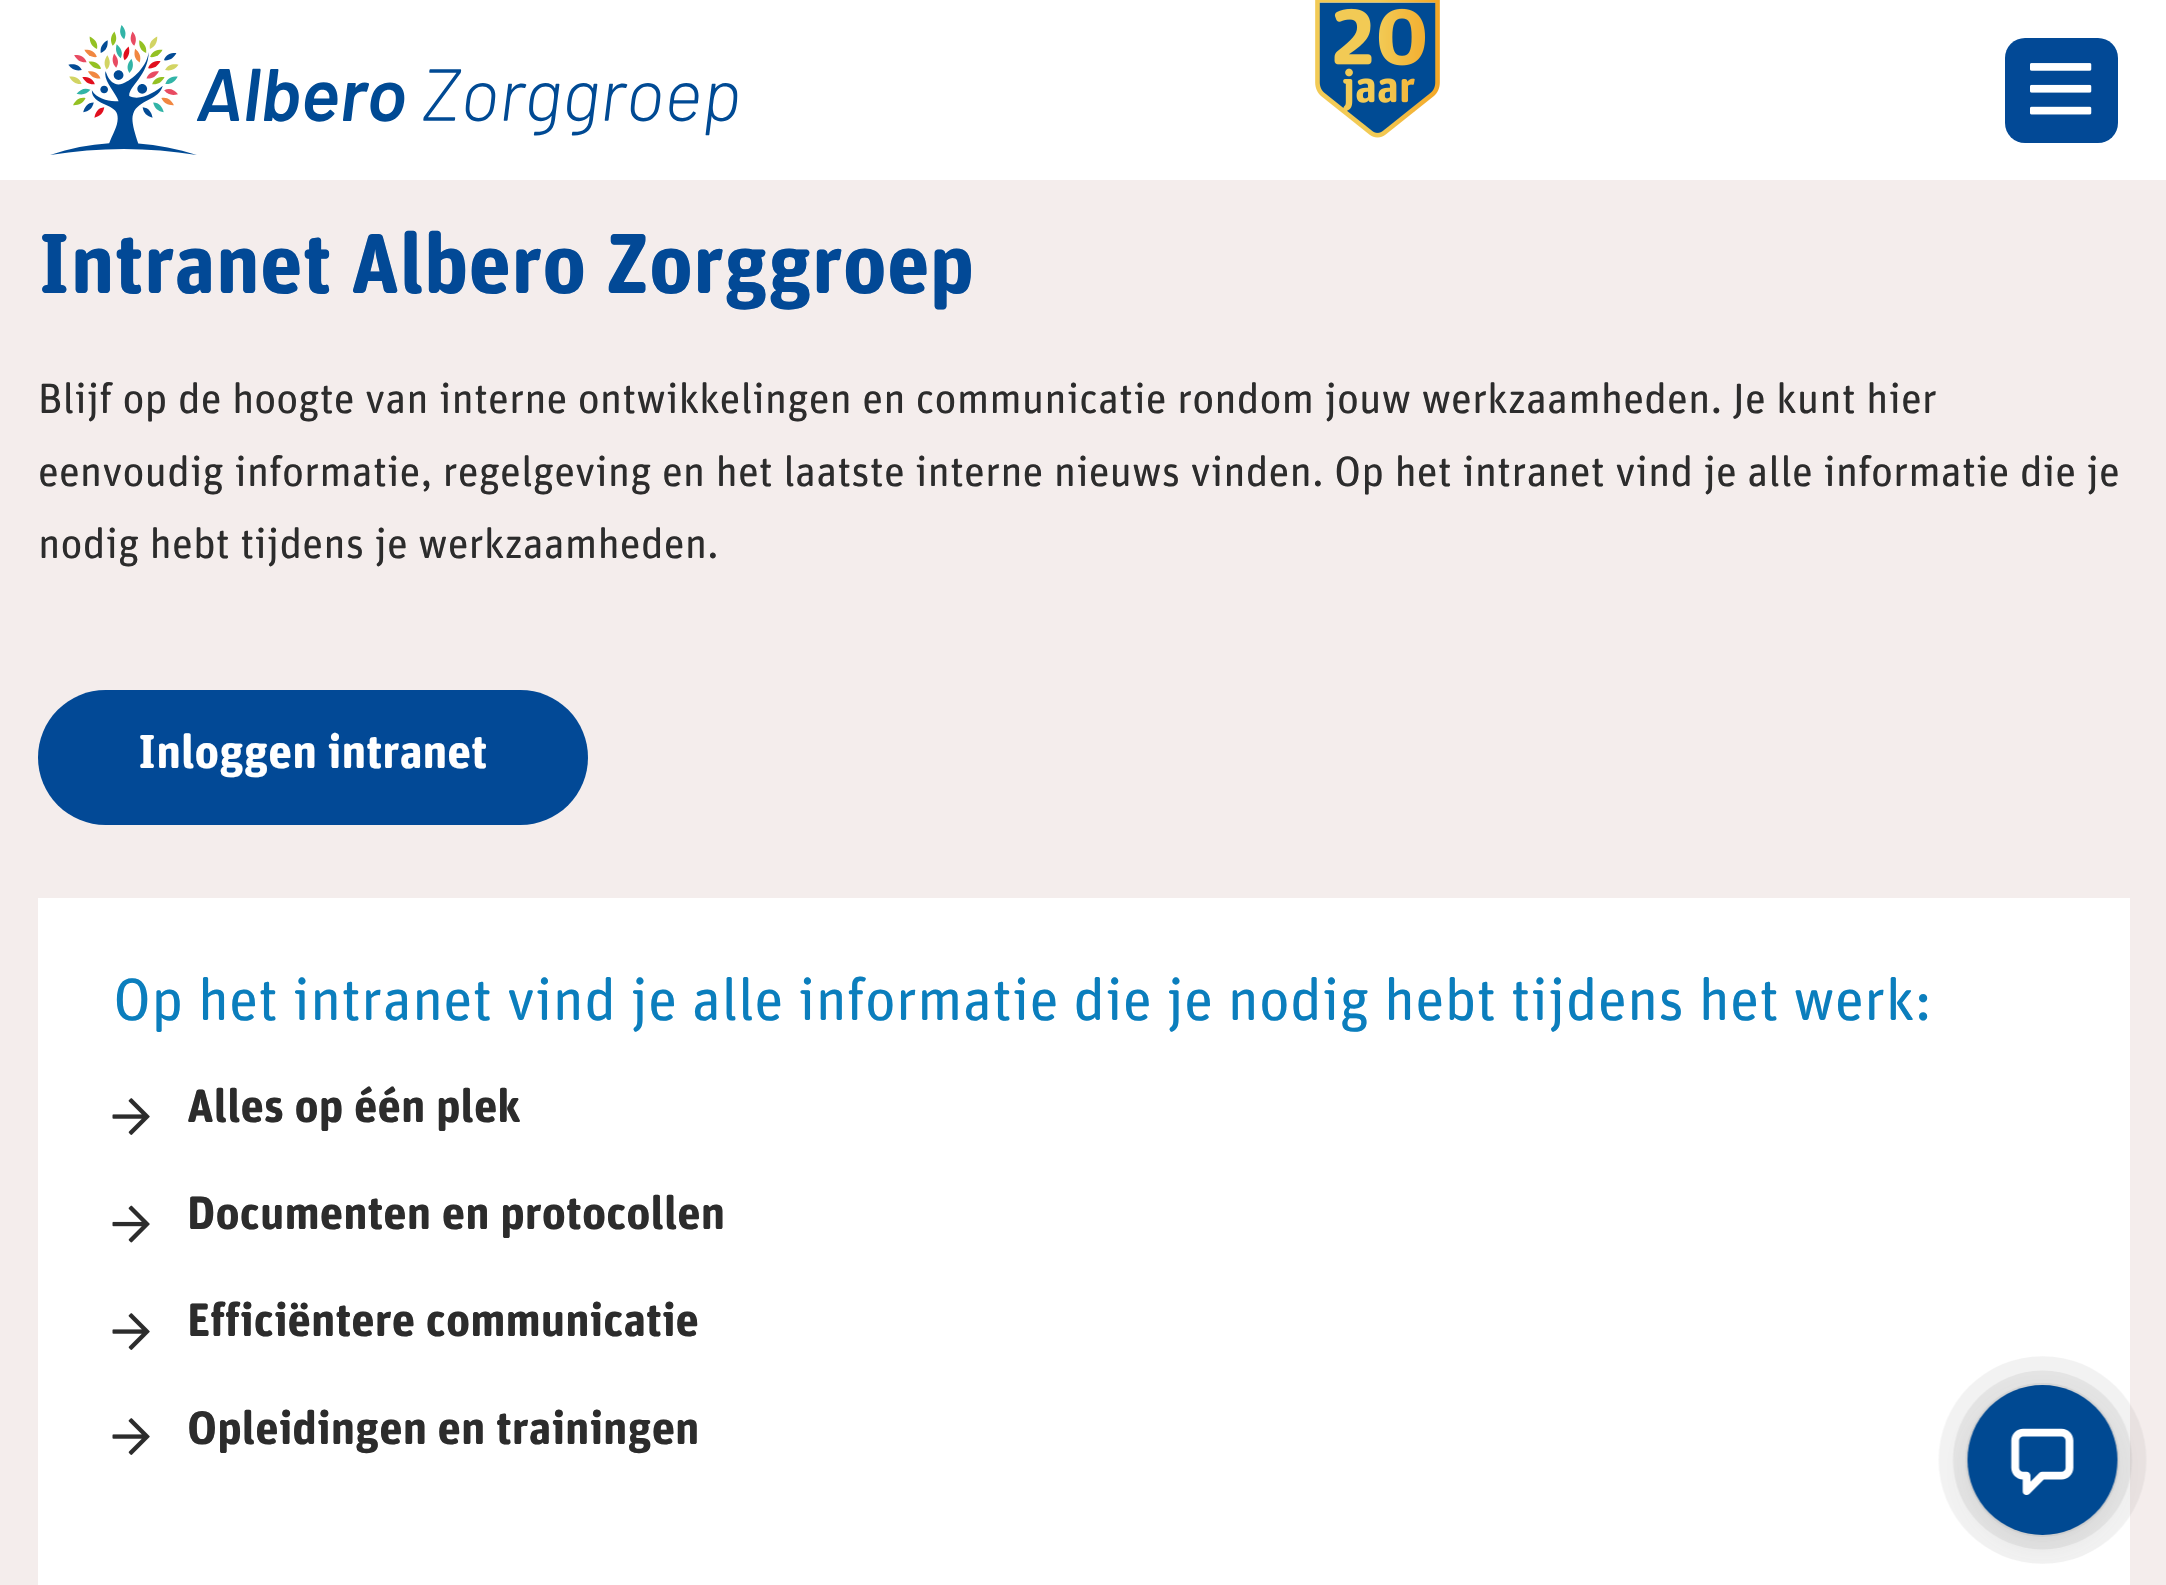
void draw(SkCanvas* canvas) {
	SkPaint paint;
	paint.setAntiAlias(true);
	canvas->clear(0xfff4edec);
	paint.setColor(0xffffffff);
	canvas->drawRect(SkRect::MakeXYWH(0, 0, 2166, 180), paint);
	canvas->drawImageRect(SkImages::DeferredFromEncodedData(SkData::MakeFromFileName("img1.png")), SkRect::MakeXYWH(50, 25, 688, 130), SkSamplingOptions());
	canvas->drawImageRect(SkImages::DeferredFromEncodedData(SkData::MakeFromFileName("img2.png")), SkRect::MakeXYWH(1315, 0, 125, 138), SkSamplingOptions());
	paint.setColor(0xff024996);
	canvas->drawRoundRect(SkRect::MakeXYWH(2005, 38, 113, 105), 20, 20, paint);
	canvas->drawImageRect(SkImages::DeferredFromEncodedData(SkData::MakeFromFileName("img3.png")), SkRect::MakeXYWH(2030, 63, 62, 52), SkSamplingOptions());
	SkFont f1(fontMgr->matchFamilyStyle("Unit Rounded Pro", SkFontStyle::Bold()), 85);
	f1.setSubpixel(true);
	canvas->drawString("Intranet Albero Zorggroep", 38, 293, f1, paint);
	SkFont f2(fontMgr->matchFamilyStyle("Unit Rounded Pro", SkFontStyle::Normal()), 42.5);
	f2.setSubpixel(true);
	paint.setColor(0xff2c2c2c);
	canvas->drawString("Blijf op de hoogte van interne ontwikkelingen en communicatie rondom jouw werkzaamheden. Je kunt hier", 38, 413, f2, paint);
	canvas->drawString("eenvoudig informatie, regelgeving en het laatste interne nieuws vinden. Op het intranet vind je alle informatie die je", 38, 486, f2, paint);
	canvas->drawString("nodig hebt tijdens je werkzaamheden.", 38, 558, f2, paint);
	paint.setColor(0xff024996);
	canvas->drawRoundRect(SkRect::MakeXYWH(38, 690, 550, 135), 67.5, 67.5, paint);
	SkFont f3(fontMgr->matchFamilyStyle("Unit Rounded Pro", SkFontStyle::Bold()), 47.5);
	f3.setSubpixel(true);
	paint.setColor(0xffffffff);
	canvas->drawString("Inloggen intranet", 138, 768, f3, paint);
	canvas->drawRect(SkRect::MakeXYWH(38, 898, 2092, 687), paint);
	SkFont f4(fontMgr->matchFamilyStyle("Unit Rounded Pro", SkFontStyle::Normal()), 59.5);
	f4.setSubpixel(true);
	paint.setColor(0xff0b7ebd);
	canvas->drawString("Op het intranet vind je alle informatie die je nodig hebt tijdens het werk:", 113, 1020, f4, paint);
	canvas->drawImageRect(SkImages::DeferredFromEncodedData(SkData::MakeFromFileName("img4.png")), SkRect::MakeXYWH(112, 1098, 38, 37), SkSamplingOptions());
	SkFont f5(fontMgr->matchFamilyStyle("Unit Rounded Pro", SkFontStyle::Bold()), 46.75);
	f5.setSubpixel(true);
	paint.setColor(0xff2c2c2c);
	canvas->drawString("Alles op één plek", 187, 1122, f5, paint);
	canvas->drawImageRect(SkImages::DeferredFromEncodedData(SkData::MakeFromFileName("img5.png")), SkRect::MakeXYWH(112, 1205, 38, 38), SkSamplingOptions());
	canvas->drawString("Documenten en protocollen", 187, 1229, f5, paint);
	canvas->drawImageRect(SkImages::DeferredFromEncodedData(SkData::MakeFromFileName("img4.png")), SkRect::MakeXYWH(112, 1313, 38, 37), SkSamplingOptions());
	canvas->drawString("Efficiëntere communicatie", 187, 1336, f5, paint);
	canvas->drawImageRect(SkImages::DeferredFromEncodedData(SkData::MakeFromFileName("img4.png")), SkRect::MakeXYWH(112, 1418, 38, 37), SkSamplingOptions());
	canvas->drawString("Opleidingen en trainingen", 187, 1444, f5, paint);
	canvas->drawImageRect(SkImages::DeferredFromEncodedData(SkData::MakeFromFileName("img6.png")), SkRect::MakeXYWH(1938, 1356, 209, 208), SkSamplingOptions());
}
